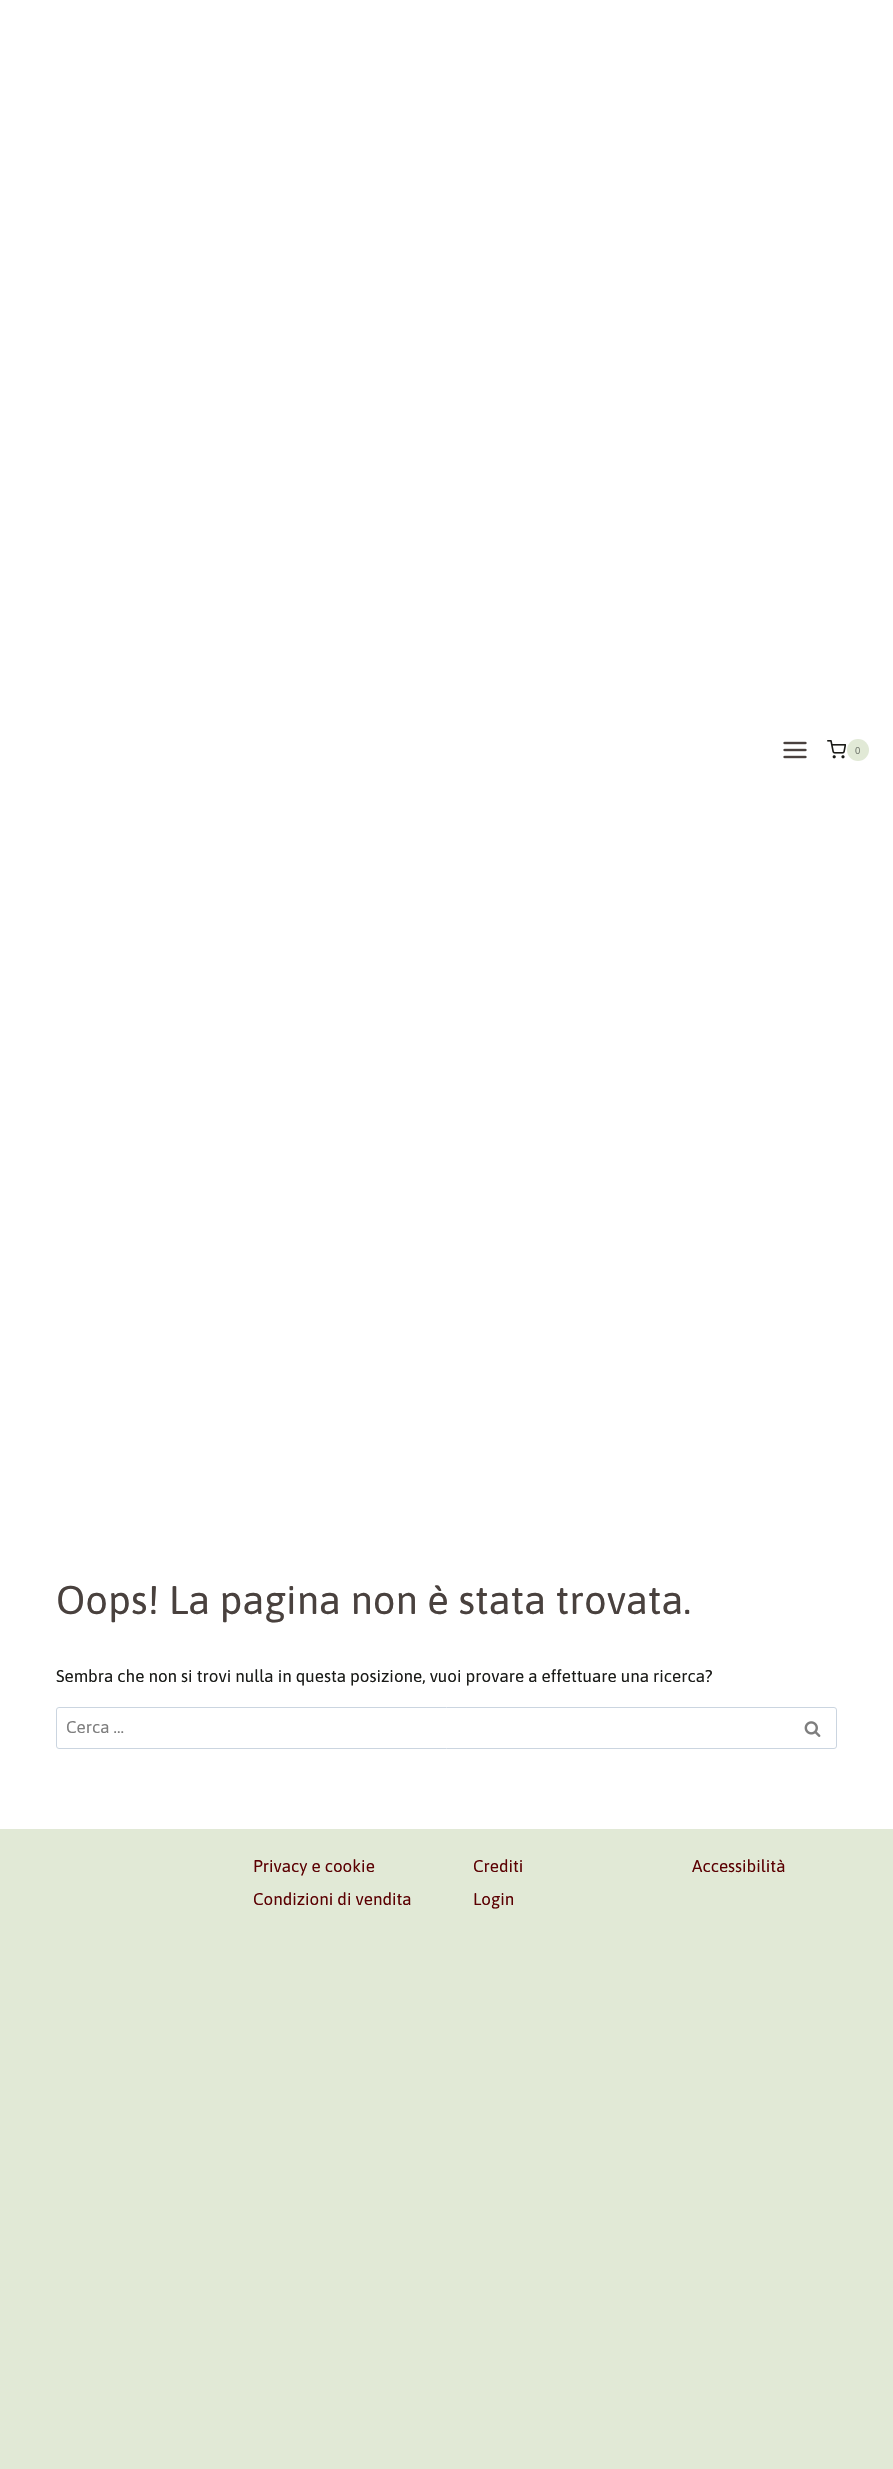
void draw(SkCanvas* canvas) {
	SkPaint paint;
	paint.setAntiAlias(true);
	canvas->clear(0xffffffff);
	canvas->drawImageRect(SkImages::DeferredFromEncodedData(SkData::MakeFromFileName("img1.png")), SkRect::MakeXYWH(783, 741, 24, 18), SkSamplingOptions());
	canvas->drawImageRect(SkImages::DeferredFromEncodedData(SkData::MakeFromFileName("img2.png")), SkRect::MakeXYWH(827, 740, 19, 19), SkSamplingOptions());
	paint.setColor(0xffe1e9d6);
	canvas->drawCircle(858, 750, 11, paint);
	SkFont f1(fontMgr->matchFamilyStyle("Asap", SkFontStyle::Normal()), 10);
	f1.setSubpixel(true);
	paint.setColor(0xff787e74);
	canvas->drawString("0", 855, 754, f1, paint);
	SkFont f2(fontMgr->matchFamilyStyle("Asap", SkFontStyle::Normal()), 40);
	f2.setSubpixel(true);
	paint.setColor(0xff49413e);
	canvas->drawString("Oops! La pagina non è stata trovata.", 56, 1614, f2, paint);
	SkFont f3(fontMgr->matchFamilyStyle("Asap", SkFontStyle::Normal()), 17);
	f3.setSubpixel(true);
	paint.setColor(0xff1a1b18);
	canvas->drawString("Sembra che non si trovi nulla in questa posizione, vuoi provare a effettuare una ricerca?", 56, 1682, f3, paint);
	paint.setStroke(true);
	paint.setStrokeWidth(1);
	paint.setColor(0xffcbd5e0);
	canvas->drawRoundRect(SkRect::MakeXYWH(56.5, 1707.5, 780, 41), 2.5, 2.5, paint);
	paint.setStroke(false);
	paint.setColor(0xff7e7e7e);
	canvas->drawString("Cerca …", 66, 1733, f3, paint);
	canvas->drawImageRect(SkImages::DeferredFromEncodedData(SkData::MakeFromFileName("img3.png")), SkRect::MakeXYWH(804, 1721, 17, 16), SkSamplingOptions());
	paint.setColor(0xffe1e9d6);
	canvas->drawRect(SkRect::MakeXYWH(0, 1829, 893, 640), paint);
	paint.setColor(0xff5b0002);
	canvas->drawString("Privacy e cookie", 253, 1872, f3, paint);
	canvas->drawString("Condizioni di vendita", 253, 1905, f3, paint);
	canvas->drawString("Crediti", 473, 1872, f3, paint);
	canvas->drawString("Login", 473, 1905, f3, paint);
	canvas->drawString("Accessibilità", 692, 1872, f3, paint);
}
